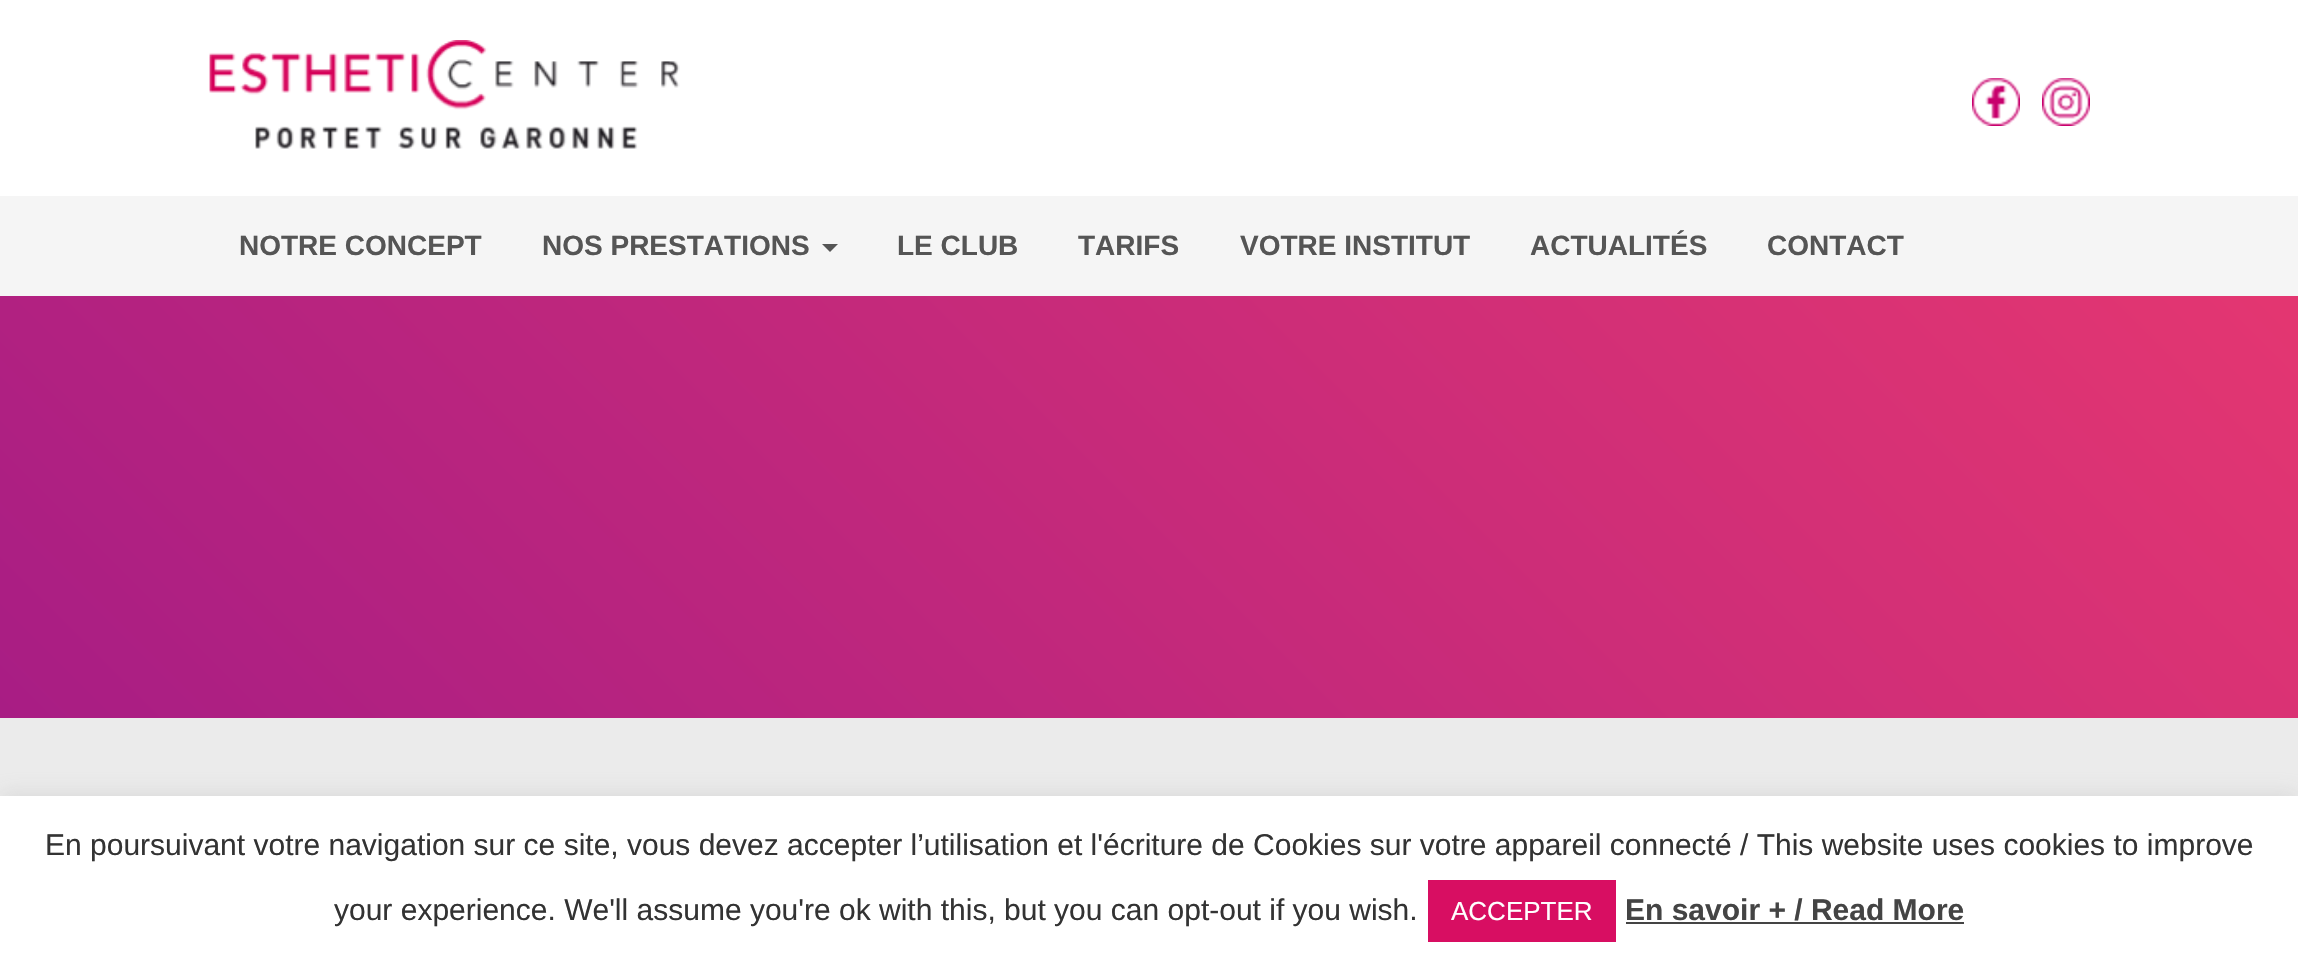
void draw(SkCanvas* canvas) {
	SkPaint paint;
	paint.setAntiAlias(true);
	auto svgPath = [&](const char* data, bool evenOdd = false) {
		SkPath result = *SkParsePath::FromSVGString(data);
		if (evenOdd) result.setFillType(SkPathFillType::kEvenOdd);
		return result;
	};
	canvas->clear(0xffebebeb);
	paint.setColor(0xffffffff);
	canvas->drawRect(SkRect::MakeXYWH(0, 0, 2298, 196), paint);
	paint.setColor(0xfff5f5f5);
	canvas->drawRect(SkRect::MakeXYWH(0, 196, 2298, 100), paint);
	canvas->drawImageRect(SkImages::DeferredFromEncodedData(SkData::MakeFromFileName("img1.png")), SkRect::MakeXYWH(209, 40, 471, 109), SkSamplingOptions());
	canvas->drawImageRect(SkImages::DeferredFromEncodedData(SkData::MakeFromFileName("img2.png")), SkRect::MakeXYWH(1972, 78, 48, 48), SkSamplingOptions());
	canvas->drawImageRect(SkImages::DeferredFromEncodedData(SkData::MakeFromFileName("img3.png")), SkRect::MakeXYWH(2042, 78, 48, 48), SkSamplingOptions());
	SkFont f1(fontMgr->matchFamilyStyle("Liberation Sans", SkFontStyle::Bold()), 28);
	f1.setSubpixel(true);
	paint.setColor(0xff555555);
	canvas->drawString("NOTRE CONCEPT", 239, 255, f1, paint);
	canvas->drawString("NOS PRESTATIONS", 542, 255, f1, paint);
	canvas->drawPath(svgPath("M822 244H838L830 252Z"), paint);
	canvas->drawString("LE CLUB", 897, 255, f1, paint);
	canvas->drawString("TARIFS", 1078, 255, f1, paint);
	canvas->drawString("VOTRE INSTITUT", 1240, 255, f1, paint);
	canvas->drawString("ACTUALITÉS", 1530, 255, f1, paint);
	canvas->drawString("CONTACT", 1767, 255, f1, paint);
	{
		const SkColor colors[] = {0xffa81d84, 0xffea396f};
		const float stops[] = {0, 1};
		const SkPoint ends[] = {{395, 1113}, {1903, -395}};
		paint.setShader(SkGradientShader::MakeLinear(ends, colors, stops, 2, SkTileMode::kClamp));
		paint.setAlpha(255);
	}
	canvas->drawRect(SkRect::MakeXYWH(0, 296, 2298, 422), paint);
	paint.setShader(nullptr);
	paint.setColor(0x4dacabab);
	paint.setMaskFilter(SkMaskFilter::MakeBlur(kNormal_SkBlurStyle, 10));
	canvas->drawRect(SkRect::MakeXYWH(0, 794, 2298, 170), paint);
	paint.setMaskFilter(nullptr);
	paint.setColor(0xffffffff);
	canvas->drawRect(SkRect::MakeXYWH(0, 796, 2298, 169), paint);
	SkFont f2(fontMgr->matchFamilyStyle("Liberation Sans", SkFontStyle::Normal()), 30);
	f2.setSubpixel(true);
	paint.setColor(0xff333333);
	canvas->drawString("En poursuivant votre navigation sur ce site, vous devez accepter l’utilisation et l'écriture de Cookies sur votre appareil connecté / This website uses cookies to improve", 45, 855, f2, paint);
	canvas->drawString("your experience. We'll assume you're ok with this, but you can opt-out if you wish.", 334, 920, f2, paint);
	paint.setColor(0xffd80e62);
	canvas->drawRect(SkRect::MakeXYWH(1428, 880, 188, 62), paint);
	SkFont f3(fontMgr->matchFamilyStyle("Liberation Sans", SkFontStyle::Normal()), 26);
	f3.setSubpixel(true);
	paint.setColor(0xffffffff);
	canvas->drawString("ACCEPTER", 1451, 920, f3, paint);
	SkFont f4(fontMgr->matchFamilyStyle("Liberation Sans", SkFontStyle::Bold()), 30);
	f4.setSubpixel(true);
	paint.setColor(0xff444444);
	canvas->drawString("En savoir + / Read More", 1625, 920, f4, paint);
	canvas->drawRect(SkRect::MakeXYWH(1626, 922, 338, 2), paint);
}
